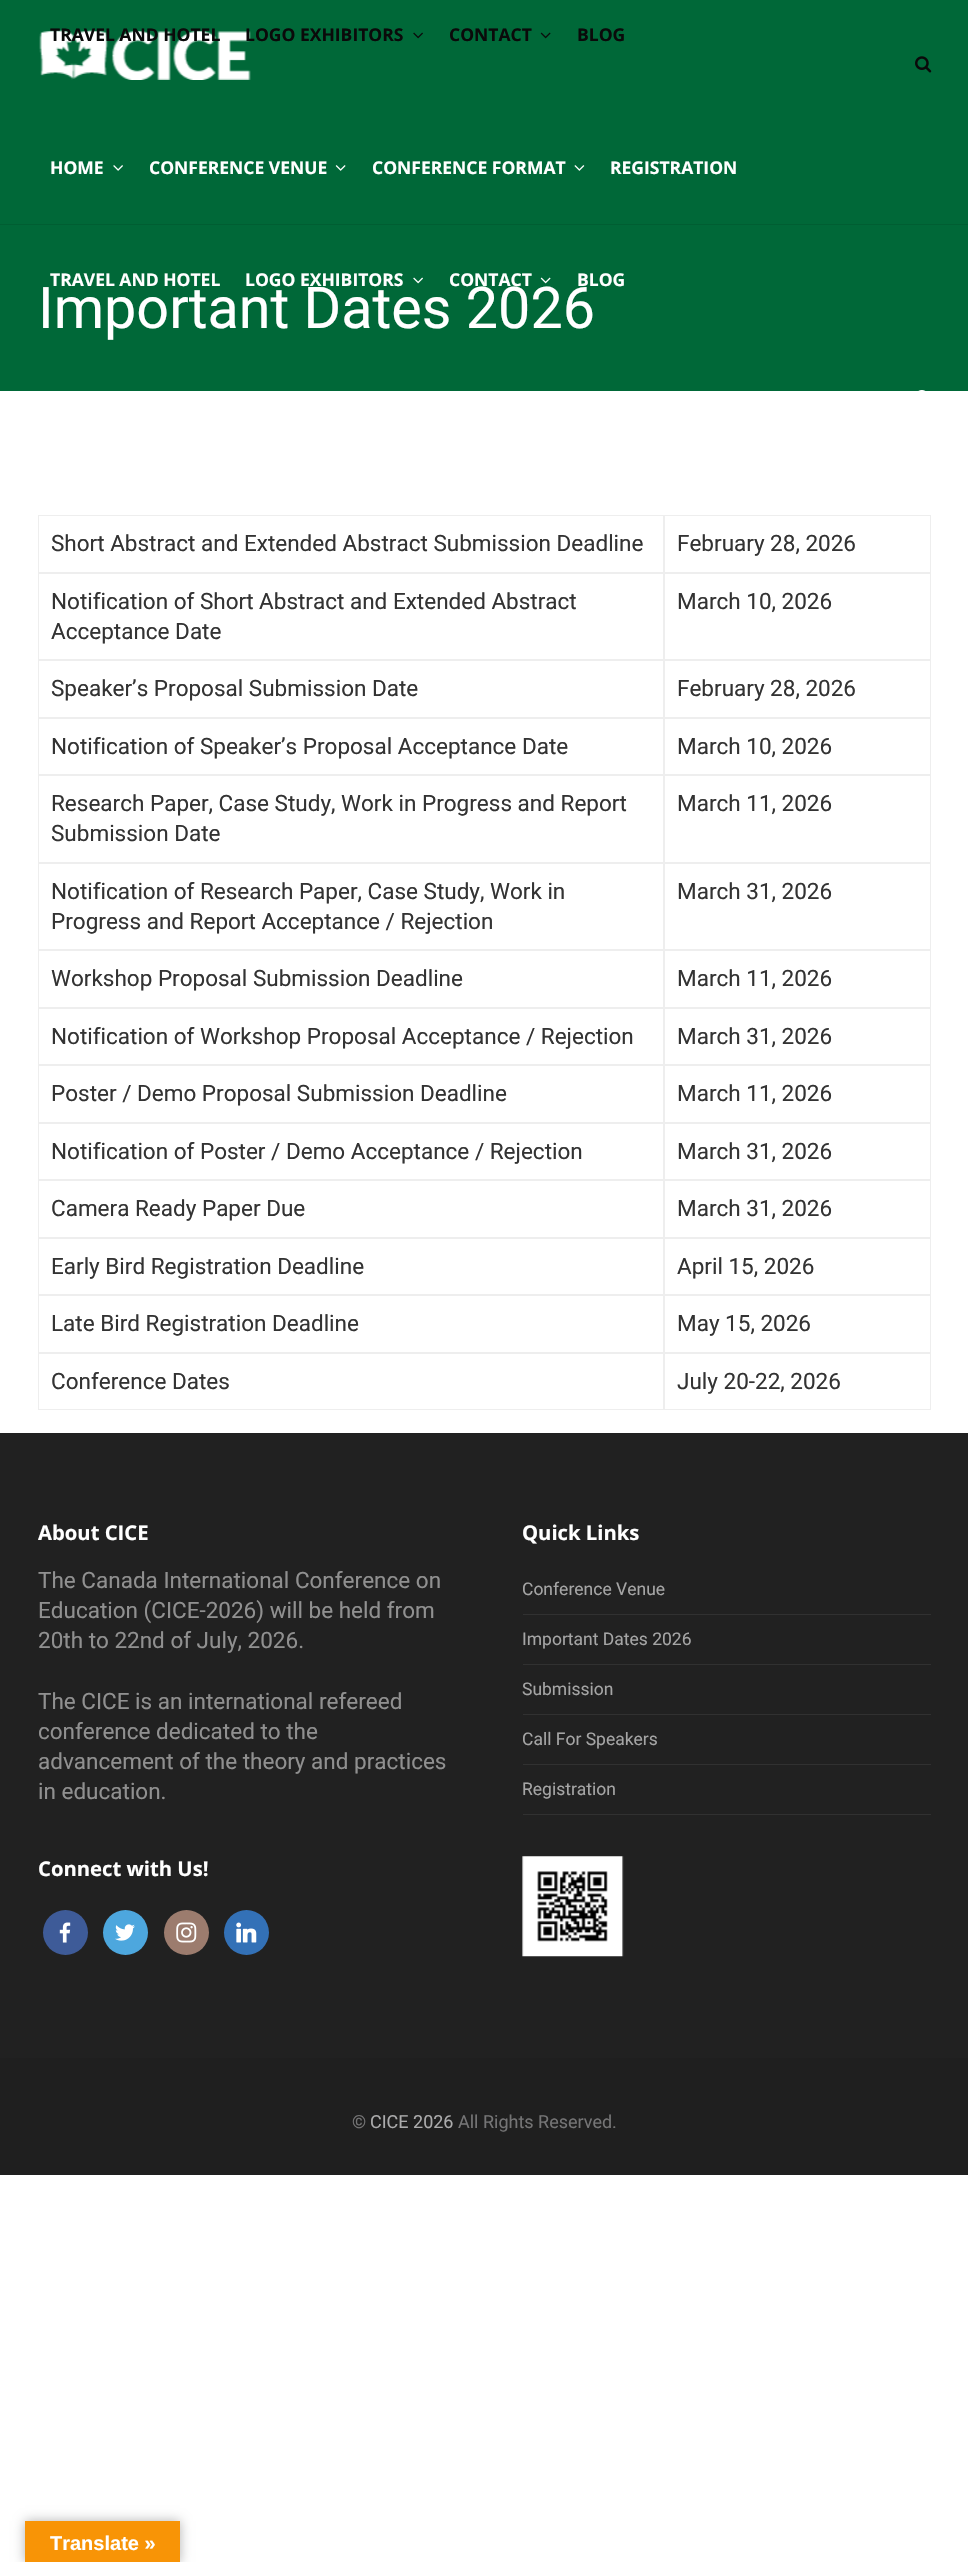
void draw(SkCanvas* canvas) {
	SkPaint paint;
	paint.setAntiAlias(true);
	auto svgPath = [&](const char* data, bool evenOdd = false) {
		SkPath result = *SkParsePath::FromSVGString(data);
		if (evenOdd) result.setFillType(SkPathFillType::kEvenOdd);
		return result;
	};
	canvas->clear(0xffffffff);
	paint.setColor(0xff006838);
	canvas->drawRect(SkRect::MakeXYWH(0, 0, 968, 224), paint);
	canvas->drawImageRect(SkImages::DeferredFromEncodedData(SkData::MakeFromFileName("img4.png")), SkRect::MakeXYWH(39, 30, 212, 50), SkSamplingOptions());
	SkFont f1(fontMgr->matchFamilyStyle("Open Sans", SkFontStyle::Bold()), 17.5);
	f1.setSubpixel(true);
	paint.setColor(0xff0a0a0a);
	canvas->drawString("TRAVEL AND HOTEL", 50, 41, f1, paint);
	canvas->drawString("LOGO EXHIBITORS", 245, 41, f1, paint);
	canvas->drawImageRect(SkImages::DeferredFromEncodedData(SkData::MakeFromFileName("img1.png")), SkRect::MakeXYWH(413, 32, 10, 7), SkSamplingOptions());
	canvas->drawString("CONTACT", 449, 41, f1, paint);
	canvas->drawImageRect(SkImages::DeferredFromEncodedData(SkData::MakeFromFileName("img2.png")), SkRect::MakeXYWH(540, 32, 11, 7), SkSamplingOptions());
	canvas->drawString("BLOG", 577, 41, f1, paint);
	canvas->drawImageRect(SkImages::DeferredFromEncodedData(SkData::MakeFromFileName("img3.png")), SkRect::MakeXYWH(915, 56, 17, 17), SkSamplingOptions());
	paint.setColor(0xff005e32);
	canvas->drawPath(svgPath("M0 224V225H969V0V224Z"), paint);
	paint.setColor(0xffffffff);
	canvas->drawString("HOME", 50, 174, f1, paint);
	canvas->drawImageRect(SkImages::DeferredFromEncodedData(SkData::MakeFromFileName("img5.png")), SkRect::MakeXYWH(113, 165, 10, 6), SkSamplingOptions());
	canvas->drawString("CONFERENCE VENUE", 149, 174, f1, paint);
	canvas->drawImageRect(SkImages::DeferredFromEncodedData(SkData::MakeFromFileName("img6.png")), SkRect::MakeXYWH(335, 165, 11, 6), SkSamplingOptions());
	canvas->drawString("CONFERENCE FORMAT", 372, 174, f1, paint);
	canvas->drawImageRect(SkImages::DeferredFromEncodedData(SkData::MakeFromFileName("img7.png")), SkRect::MakeXYWH(574, 165, 11, 6), SkSamplingOptions());
	canvas->drawString("REGISTRATION", 610, 174, f1, paint);
	paint.setColor(0xff006838);
	canvas->drawRect(SkRect::MakeXYWH(0, 225, 968, 166), paint);
	paint.setColor(0xffffffff);
	canvas->drawString("TRAVEL AND HOTEL", 50, 286, f1, paint);
	canvas->drawString("LOGO EXHIBITORS", 245, 286, f1, paint);
	canvas->drawImageRect(SkImages::DeferredFromEncodedData(SkData::MakeFromFileName("img8.png")), SkRect::MakeXYWH(413, 277, 10, 7), SkSamplingOptions());
	canvas->drawString("CONTACT", 449, 286, f1, paint);
	canvas->drawImageRect(SkImages::DeferredFromEncodedData(SkData::MakeFromFileName("img9.png")), SkRect::MakeXYWH(540, 277, 11, 7), SkSamplingOptions());
	canvas->drawString("BLOG", 577, 286, f1, paint);
	canvas->drawImageRect(SkImages::DeferredFromEncodedData(SkData::MakeFromFileName("img10.png")), SkRect::MakeXYWH(918, 390, 8, 1), SkSamplingOptions());
	SkFont f2(fontMgr->matchFamilyStyle("Roboto", SkFontStyle::Normal()), 57.5);
	f2.setSubpixel(true);
	canvas->drawString("Important Dates 2026", 38, 328, f2, paint);
	paint.setStroke(true);
	paint.setStrokeWidth(1);
	paint.setColor(0xffeeeeee);
	canvas->drawRect(SkRect::MakeXYWH(38.5, 515.5, 625, 57), paint);
	SkFont f3(fontMgr->matchFamilyStyle("Roboto", SkFontStyle::Normal()), 22.5);
	f3.setSubpixel(true);
	paint.setStroke(false);
	paint.setColor(0xff333333);
	canvas->drawString("Short Abstract and Extended Abstract Submission Deadline", 51, 551, f3, paint);
	paint.setStroke(true);
	paint.setColor(0xffeeeeee);
	canvas->drawRect(SkRect::MakeXYWH(664.5, 515.5, 266, 57), paint);
	paint.setStroke(false);
	paint.setColor(0xff333333);
	canvas->drawString("February 28, 2026", 677, 551, f3, paint);
	paint.setStroke(true);
	paint.setColor(0xffeeeeee);
	canvas->drawRect(SkRect::MakeXYWH(38.5, 573.5, 625, 86), paint);
	paint.setStroke(false);
	paint.setColor(0xff333333);
	canvas->drawString("Notification of Short Abstract and Extended Abstract", 51, 609, f3, paint);
	canvas->drawString("Acceptance Date", 51, 639, f3, paint);
	paint.setStroke(true);
	paint.setColor(0xffeeeeee);
	canvas->drawRect(SkRect::MakeXYWH(664.5, 573.5, 266, 86), paint);
	paint.setStroke(false);
	paint.setColor(0xff333333);
	canvas->drawString("March 10, 2026", 677, 609, f3, paint);
	paint.setStroke(true);
	paint.setColor(0xffeeeeee);
	canvas->drawRect(SkRect::MakeXYWH(38.5, 660.5, 625, 57), paint);
	paint.setStroke(false);
	paint.setColor(0xff333333);
	canvas->drawString("Speaker’s Proposal Submission Date", 51, 696, f3, paint);
	paint.setStroke(true);
	paint.setColor(0xffeeeeee);
	canvas->drawRect(SkRect::MakeXYWH(664.5, 660.5, 266, 57), paint);
	paint.setStroke(false);
	paint.setColor(0xff333333);
	canvas->drawString("February 28, 2026", 677, 696, f3, paint);
	paint.setStroke(true);
	paint.setColor(0xffeeeeee);
	canvas->drawRect(SkRect::MakeXYWH(38.5, 718.5, 625, 56), paint);
	paint.setStroke(false);
	paint.setColor(0xff333333);
	canvas->drawString("Notification of Speaker’s Proposal Acceptance Date", 51, 754, f3, paint);
	paint.setStroke(true);
	paint.setColor(0xffeeeeee);
	canvas->drawRect(SkRect::MakeXYWH(664.5, 718.5, 266, 56), paint);
	paint.setStroke(false);
	paint.setColor(0xff333333);
	canvas->drawString("March 10, 2026", 677, 754, f3, paint);
	paint.setStroke(true);
	paint.setColor(0xffeeeeee);
	canvas->drawRect(SkRect::MakeXYWH(38.5, 775.5, 625, 87), paint);
	paint.setStroke(false);
	paint.setColor(0xff333333);
	canvas->drawString("Research Paper, Case Study, Work in Progress and Report", 51, 811, f3, paint);
	canvas->drawString("Submission Date", 51, 841, f3, paint);
	paint.setStroke(true);
	paint.setColor(0xffeeeeee);
	canvas->drawRect(SkRect::MakeXYWH(664.5, 775.5, 266, 87), paint);
	paint.setStroke(false);
	paint.setColor(0xff333333);
	canvas->drawString("March 11, 2026", 677, 811, f3, paint);
	paint.setStroke(true);
	paint.setColor(0xffeeeeee);
	canvas->drawRect(SkRect::MakeXYWH(38.5, 863.5, 625, 86), paint);
	paint.setStroke(false);
	paint.setColor(0xff333333);
	canvas->drawString("Notification of Research Paper, Case Study, Work in", 51, 899, f3, paint);
	canvas->drawString("Progress and Report Acceptance / Rejection", 51, 929, f3, paint);
	paint.setStroke(true);
	paint.setColor(0xffeeeeee);
	canvas->drawRect(SkRect::MakeXYWH(664.5, 863.5, 266, 86), paint);
	paint.setStroke(false);
	paint.setColor(0xff333333);
	canvas->drawString("March 31, 2026", 677, 899, f3, paint);
	paint.setStroke(true);
	paint.setColor(0xffeeeeee);
	canvas->drawRect(SkRect::MakeXYWH(38.5, 950.5, 625, 57), paint);
	paint.setStroke(false);
	paint.setColor(0xff333333);
	canvas->drawString("Workshop Proposal Submission Deadline", 51, 986, f3, paint);
	paint.setStroke(true);
	paint.setColor(0xffeeeeee);
	canvas->drawRect(SkRect::MakeXYWH(664.5, 950.5, 266, 57), paint);
	paint.setStroke(false);
	paint.setColor(0xff333333);
	canvas->drawString("March 11, 2026", 677, 986, f3, paint);
	paint.setStroke(true);
	paint.setColor(0xffeeeeee);
	canvas->drawRect(SkRect::MakeXYWH(38.5, 1008.5, 625, 56), paint);
	paint.setStroke(false);
	paint.setColor(0xff333333);
	canvas->drawString("Notification of Workshop Proposal Acceptance / Rejection", 51, 1044, f3, paint);
	paint.setStroke(true);
	paint.setColor(0xffeeeeee);
	canvas->drawRect(SkRect::MakeXYWH(664.5, 1008.5, 266, 56), paint);
	paint.setStroke(false);
	paint.setColor(0xff333333);
	canvas->drawString("March 31, 2026", 677, 1044, f3, paint);
	paint.setStroke(true);
	paint.setColor(0xffeeeeee);
	canvas->drawRect(SkRect::MakeXYWH(38.5, 1065.5, 625, 57), paint);
	paint.setStroke(false);
	paint.setColor(0xff333333);
	canvas->drawString("Poster / Demo Proposal Submission Deadline", 51, 1101, f3, paint);
	paint.setStroke(true);
	paint.setColor(0xffeeeeee);
	canvas->drawRect(SkRect::MakeXYWH(664.5, 1065.5, 266, 57), paint);
	paint.setStroke(false);
	paint.setColor(0xff333333);
	canvas->drawString("March 11, 2026", 677, 1101, f3, paint);
	paint.setStroke(true);
	paint.setColor(0xffeeeeee);
	canvas->drawRect(SkRect::MakeXYWH(38.5, 1123.5, 625, 56), paint);
	paint.setStroke(false);
	paint.setColor(0xff333333);
	canvas->drawString("Notification of Poster / Demo Acceptance / Rejection", 51, 1159, f3, paint);
	paint.setStroke(true);
	paint.setColor(0xffeeeeee);
	canvas->drawRect(SkRect::MakeXYWH(664.5, 1123.5, 266, 56), paint);
	paint.setStroke(false);
	paint.setColor(0xff333333);
	canvas->drawString("March 31, 2026", 677, 1159, f3, paint);
	paint.setStroke(true);
	paint.setColor(0xffeeeeee);
	canvas->drawRect(SkRect::MakeXYWH(38.5, 1180.5, 625, 57), paint);
	paint.setStroke(false);
	paint.setColor(0xff333333);
	canvas->drawString("Camera Ready Paper Due", 51, 1216, f3, paint);
	paint.setStroke(true);
	paint.setColor(0xffeeeeee);
	canvas->drawRect(SkRect::MakeXYWH(664.5, 1180.5, 266, 57), paint);
	paint.setStroke(false);
	paint.setColor(0xff333333);
	canvas->drawString("March 31, 2026", 677, 1216, f3, paint);
	paint.setStroke(true);
	paint.setColor(0xffeeeeee);
	canvas->drawRect(SkRect::MakeXYWH(38.5, 1238.5, 625, 56), paint);
	paint.setStroke(false);
	paint.setColor(0xff333333);
	canvas->drawString("Early Bird Registration Deadline", 51, 1274, f3, paint);
	paint.setStroke(true);
	paint.setColor(0xffeeeeee);
	canvas->drawRect(SkRect::MakeXYWH(664.5, 1238.5, 266, 56), paint);
	paint.setStroke(false);
	paint.setColor(0xff333333);
	canvas->drawString("April 15, 2026", 677, 1274, f3, paint);
	paint.setStroke(true);
	paint.setColor(0xffeeeeee);
	canvas->drawRect(SkRect::MakeXYWH(38.5, 1295.5, 625, 57), paint);
	paint.setStroke(false);
	paint.setColor(0xff333333);
	canvas->drawString("Late Bird Registration Deadline", 51, 1331, f3, paint);
	paint.setStroke(true);
	paint.setColor(0xffeeeeee);
	canvas->drawRect(SkRect::MakeXYWH(664.5, 1295.5, 266, 57), paint);
	paint.setStroke(false);
	paint.setColor(0xff333333);
	canvas->drawString("May 15, 2026", 677, 1331, f3, paint);
	paint.setStroke(true);
	paint.setColor(0xffeeeeee);
	canvas->drawRect(SkRect::MakeXYWH(38.5, 1353.5, 625, 56), paint);
	paint.setStroke(false);
	paint.setColor(0xff333333);
	canvas->drawString("Conference Dates", 51, 1389, f3, paint);
	paint.setStroke(true);
	paint.setColor(0xffeeeeee);
	canvas->drawRect(SkRect::MakeXYWH(664.5, 1353.5, 266, 56), paint);
	paint.setStroke(false);
	paint.setColor(0xff333333);
	canvas->drawString("July 20-22, 2026", 677, 1389, f3, paint);
	paint.setColor(0xff212121);
	canvas->drawRect(SkRect::MakeXYWH(0, 1433, 968, 625), paint);
	SkFont f4(fontMgr->matchFamilyStyle("Open Sans", SkFontStyle::Bold()), 20.25);
	f4.setSubpixel(true);
	paint.setColor(0xffffffff);
	canvas->drawString("About CICE", 38, 1540, f4, paint);
	paint.setColor(0xff909090);
	canvas->drawString("The Canada International Conference on", 38, 1588, f3, paint);
	canvas->drawString("Education (CICE-2026) will be held from", 38, 1618, f3, paint);
	canvas->drawString("20th to 22nd of July, 2026.", 38, 1648, f3, paint);
	canvas->drawString("The CICE is an international refereed", 38, 1709, f3, paint);
	canvas->drawString("conference dedicated to the", 38, 1739, f3, paint);
	canvas->drawString("advancement of the theory and practices", 38, 1769, f3, paint);
	canvas->drawString("in education.", 38, 1799, f3, paint);
	paint.setColor(0xffffffff);
	canvas->drawString("Quick Links", 522, 1540, f4, paint);
	paint.setColor(0xff313131);
	canvas->drawRect(SkRect::MakeXYWH(523, 1614, 408, 1), paint);
	SkFont f5(fontMgr->matchFamilyStyle("Roboto", SkFontStyle::Normal()), 17.5);
	f5.setSubpixel(true);
	paint.setColor(0xffa5a5a5);
	canvas->drawString("Conference Venue", 522, 1595, f5, paint);
	paint.setColor(0xff313131);
	canvas->drawRect(SkRect::MakeXYWH(523, 1664, 408, 1), paint);
	paint.setColor(0xffa5a5a5);
	canvas->drawString("Important Dates 2026", 522, 1645, f5, paint);
	paint.setColor(0xff313131);
	canvas->drawRect(SkRect::MakeXYWH(523, 1714, 408, 1), paint);
	paint.setColor(0xffa5a5a5);
	canvas->drawString("Submission", 522, 1695, f5, paint);
	paint.setColor(0xff313131);
	canvas->drawRect(SkRect::MakeXYWH(523, 1764, 408, 1), paint);
	paint.setColor(0xffa5a5a5);
	canvas->drawString("Call For Speakers", 522, 1745, f5, paint);
	paint.setColor(0xff313131);
	canvas->drawRect(SkRect::MakeXYWH(523, 1814, 408, 1), paint);
	paint.setColor(0xffa5a5a5);
	canvas->drawString("Registration", 522, 1795, f5, paint);
	paint.setColor(0xffffffff);
	canvas->drawString("Connect with Us!", 38, 1876, f4, paint);
	paint.setColor(0xff3e5b98);
	canvas->drawCircle(65.5, 1932.5, 22.5, paint);
	canvas->drawImageRect(SkImages::DeferredFromEncodedData(SkData::MakeFromFileName("img11.png")), SkRect::MakeXYWH(59, 1922, 12, 21), SkSamplingOptions());
	paint.setColor(0xff4da7de);
	canvas->drawCircle(125.5, 1932.5, 22.5, paint);
	canvas->drawImageRect(SkImages::DeferredFromEncodedData(SkData::MakeFromFileName("img12.png")), SkRect::MakeXYWH(115, 1924, 20, 17), SkSamplingOptions());
	paint.setColor(0xff9c7c6e);
	canvas->drawCircle(186.5, 1932.5, 22.5, paint);
	canvas->drawImageRect(SkImages::DeferredFromEncodedData(SkData::MakeFromFileName("img13.png")), SkRect::MakeXYWH(176, 1922, 21, 21), SkSamplingOptions());
	paint.setColor(0xff3371b7);
	canvas->drawCircle(246.5, 1932.5, 22.5, paint);
	canvas->drawImageRect(SkImages::DeferredFromEncodedData(SkData::MakeFromFileName("img14.png")), SkRect::MakeXYWH(236, 1922, 21, 21), SkSamplingOptions());
	canvas->drawImageRect(SkImages::DeferredFromEncodedData(SkData::MakeFromFileName("img15.png")), SkRect::MakeXYWH(522, 1856, 102, 101), SkSamplingOptions());
	paint.setColor(0xff1f1f1f);
	canvas->drawRect(SkRect::MakeXYWH(0, 2058, 968, 117), paint);
	SkFont f6(fontMgr->matchFamilyStyle("Roboto", SkFontStyle::Normal()), 18);
	f6.setSubpixel(true);
	paint.setColor(0xff747475);
	canvas->drawString("©", 352, 2128, f6, paint);
	paint.setColor(0xffababac);
	canvas->drawString("CICE 2026", 370, 2128, f6, paint);
	paint.setColor(0xff747475);
	canvas->drawString("All Rights Reserved.", 458, 2128, f6, paint);
	paint.setColor(0x4d000000);
	paint.setMaskFilter(SkMaskFilter::MakeBlur(kNormal_SkBlurStyle, 5.5));
	canvas->drawRect(SkRect::MakeXYWH(25, 2521, 155, 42), paint);
	paint.setMaskFilter(nullptr);
	paint.setColor(0xfff89406);
	canvas->drawRect(SkRect::MakeXYWH(25, 2521, 155, 41), paint);
	SkFont f7(fontMgr->matchFamilyStyle("Liberation Sans", SkFontStyle::Bold()), 20);
	f7.setSubpixel(true);
	paint.setColor(0xffffffff);
	canvas->drawString("Translate »", 50, 2550, f7, paint);
}
